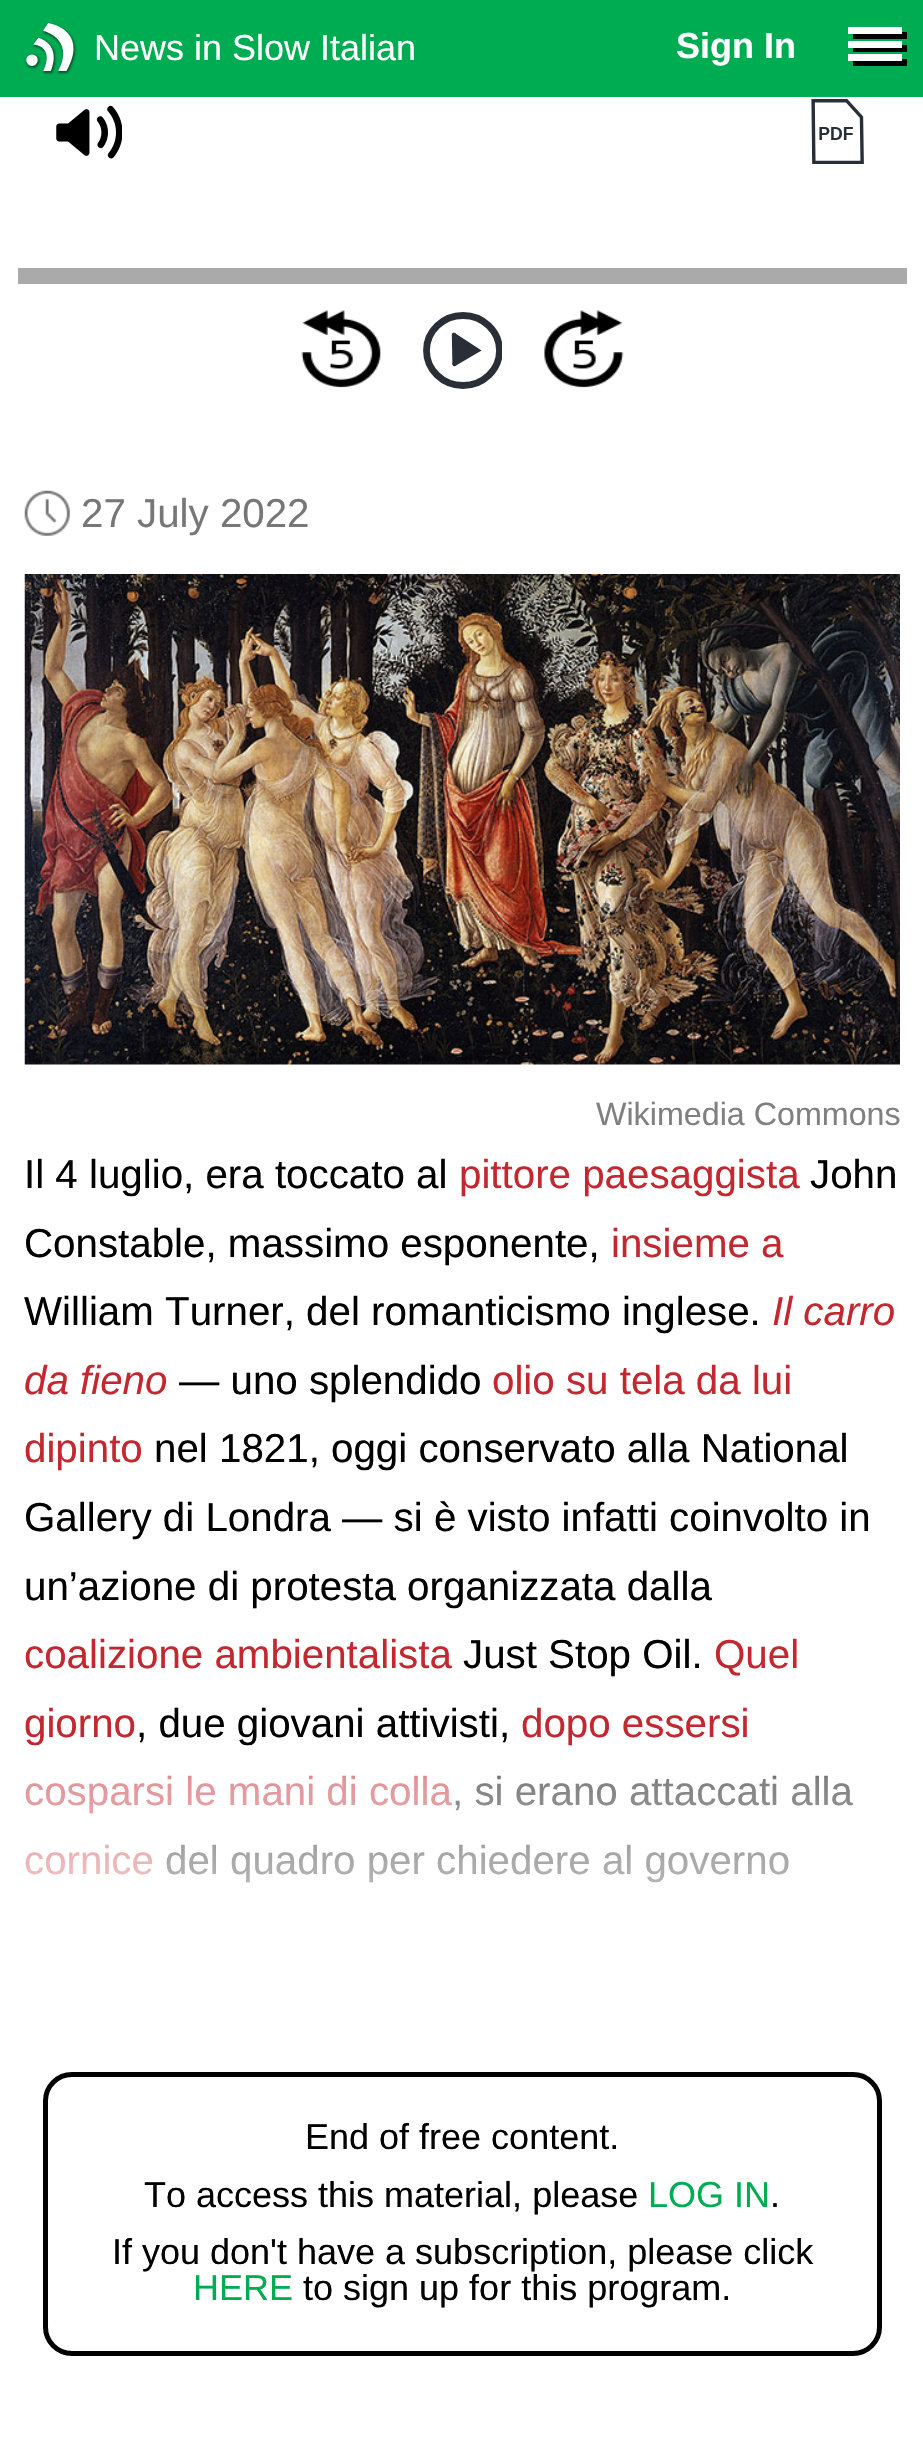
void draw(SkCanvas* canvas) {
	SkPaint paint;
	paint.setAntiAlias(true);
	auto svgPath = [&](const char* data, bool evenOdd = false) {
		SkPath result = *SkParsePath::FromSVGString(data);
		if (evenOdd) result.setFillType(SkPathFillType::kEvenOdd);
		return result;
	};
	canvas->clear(0xffffffff);
	paint.setColor(0xff00ac52);
	canvas->drawRect(SkRect::MakeXYWH(0, 0, 923, 97), paint);
	canvas->drawImageRect(SkImages::DeferredFromEncodedData(SkData::MakeFromFileName("img1.png")), SkRect::MakeXYWH(24, 22, 53, 53), SkSamplingOptions());
	SkFont f1(fontMgr->matchFamilyStyle("Liberation Sans", SkFontStyle::Normal()), 36);
	f1.setSubpixel(true);
	paint.setColor(0xffffffff);
	canvas->drawString("News in Slow Italian", 94, 60, f1, paint);
	SkFont f2(fontMgr->matchFamilyStyle("Liberation Sans", SkFontStyle::Bold()), 36);
	f2.setSubpixel(true);
	canvas->drawString("Sign In", 676, 58, f2, paint);
	paint.setColor(0xff000000);
	canvas->drawPath(svgPath("M853 34V39H907V32H902V34Z"), paint);
	paint.setColor(0xffffffff);
	canvas->drawRect(SkRect::MakeXYWH(848, 27, 54, 7), paint);
	paint.setColor(0xff000000);
	canvas->drawPath(svgPath("M853 47V52H907V45H902V47Z"), paint);
	paint.setColor(0xffffffff);
	canvas->drawRect(SkRect::MakeXYWH(848, 41, 54, 7), paint);
	paint.setColor(0xff000000);
	canvas->drawPath(svgPath("M853 61V66H907V59H902V61Z"), paint);
	paint.setColor(0xffffffff);
	canvas->drawRect(SkRect::MakeXYWH(848, 54, 54, 7), paint);
	canvas->drawImageRect(SkImages::DeferredFromEncodedData(SkData::MakeFromFileName("img2.png")), SkRect::MakeXYWH(56, 105, 66, 54), SkSamplingOptions());
	canvas->drawImageRect(SkImages::DeferredFromEncodedData(SkData::MakeFromFileName("img3.png")), SkRect::MakeXYWH(811, 99, 53, 65), SkSamplingOptions());
	paint.setColor(0xffaaaaaa);
	canvas->drawRect(SkRect::MakeXYWH(18, 268, 889, 16), paint);
	canvas->drawImageRect(SkImages::DeferredFromEncodedData(SkData::MakeFromFileName("img4.png")), SkRect::MakeXYWH(301, 310, 80, 78), SkSamplingOptions());
	canvas->save();
	canvas->clipRect(SkRect::MakeXYWH(423, 311, 79, 78));
	paint.setStroke(true);
	paint.setStrokeWidth(6.8);
	paint.setColor(0xff292e37);
	canvas->drawOval(SkRect::MakeXYWH(426.5, 315.5, 73, 70), paint);
	canvas->restore();
	paint.setStrokeWidth(4.3);
	paint.setStrokeCap(SkPaint::kRound_Cap);
	canvas->drawPath(svgPath("M454 335L454.5 364"), paint);
	paint.setStroke(false);
	canvas->drawPath(svgPath("M454.5 364L477.5 350.5L454 335"), paint);
	paint.setStroke(true);
	canvas->drawPath(svgPath("M454.5 364L477.5 350.5L454 335"), paint);
	canvas->drawImageRect(SkImages::DeferredFromEncodedData(SkData::MakeFromFileName("img5.png")), SkRect::MakeXYWH(544, 310, 80, 78), SkSamplingOptions());
	canvas->drawImageRect(SkImages::DeferredFromEncodedData(SkData::MakeFromFileName("img6.png")), SkRect::MakeXYWH(24, 490, 46, 46), SkSamplingOptions());
	SkFont f3(fontMgr->matchFamilyStyle("Liberation Sans", SkFontStyle::Normal()), 40.3);
	f3.setSubpixel(true);
	paint.setStroke(false);
	paint.setColor(0xff777777);
	canvas->drawString("27 July 2022", 81, 527, f3, paint);
	canvas->drawImageRect(SkImages::DeferredFromEncodedData(SkData::MakeFromFileName("img7.png")), SkRect::MakeXYWH(24, 574, 876, 491), SkSamplingOptions());
	SkFont f4(fontMgr->matchFamilyStyle("Liberation Sans", SkFontStyle::Normal()), 32.25);
	f4.setSubpixel(true);
	paint.setColor(0xff808080);
	canvas->drawString("Wikimedia Commons", 596, 1125, f4, paint);
	paint.setColor(0xff000000);
	canvas->drawString("Il 4 luglio, era toccato al", 24, 1188, f3, paint);
	paint.setColor(0xffc3272f);
	canvas->drawString("pittore paesaggista", 459, 1188, f3, paint);
	paint.setColor(0xff000000);
	canvas->drawString("John", 810, 1188, f3, paint);
	canvas->drawString("Constable, massimo esponente,", 24, 1257, f3, paint);
	paint.setColor(0xffc3272f);
	canvas->drawString("insieme a", 611, 1257, f3, paint);
	paint.setColor(0xff000000);
	canvas->drawString("William Turner, del romanticismo inglese.", 24, 1325, f3, paint);
	SkFont f5(fontMgr->matchFamilyStyle("Liberation Sans", SkFontStyle::Italic()), 40.3);
	f5.setSubpixel(true);
	paint.setColor(0xffc3272f);
	canvas->drawString("Il carro", 772, 1325, f5, paint);
	canvas->drawString("da fieno", 24, 1394, f5, paint);
	paint.setColor(0xff000000);
	canvas->drawString("— uno splendido", 179, 1394, f3, paint);
	paint.setColor(0xffc3272f);
	canvas->drawString("olio su tela da lui", 492, 1394, f3, paint);
	canvas->drawString("dipinto", 24, 1462, f3, paint);
	paint.setColor(0xff000000);
	canvas->drawString("nel 1821, oggi conservato alla National", 154, 1462, f3, paint);
	canvas->drawString("Gallery di Londra — si è visto infatti coinvolto in", 24, 1531, f3, paint);
	canvas->drawString("un’azione di protesta organizzata dalla", 24, 1600, f3, paint);
	paint.setColor(0xffc3272f);
	canvas->drawString("coalizione ambientalista", 24, 1668, f3, paint);
	paint.setColor(0xff000000);
	canvas->drawString("Just Stop Oil.", 463, 1668, f3, paint);
	paint.setColor(0xffc3272f);
	canvas->drawString("Quel", 714, 1668, f3, paint);
	canvas->drawString("giorno", 24, 1737, f3, paint);
	paint.setColor(0xff000000);
	canvas->drawString(", due giovani attivisti,", 136, 1737, f3, paint);
	paint.setColor(0xffc3272f);
	canvas->drawString("dopo essersi", 521, 1737, f3, paint);
	canvas->drawString("cosparsi le mani di colla", 24, 1805, f3, paint);
	paint.setColor(0xff000000);
	canvas->drawString(", si erano attaccati alla", 452, 1805, f3, paint);
	paint.setColor(0xffc3272f);
	canvas->drawString("cornice", 24, 1874, f3, paint);
	paint.setColor(0xff000000);
	canvas->drawString("del quadro per chiedere al governo", 165, 1874, f3, paint);
	{
		const SkColor colors[] = {0x00ffffff, 0x80ffffff, 0xffffffff};
		const float stops[] = {0, 0.1, 1};
		const SkPoint ends[] = {{462, 1751}, {462, 2032}};
		paint.setShader(SkGradientShader::MakeLinear(ends, colors, stops, 3, SkTileMode::kClamp));
		paint.setAlpha(255);
	}
	canvas->drawRect(SkRect::MakeXYWH(25, 1775, 829, 108), paint);
	paint.setStroke(true);
	paint.setStrokeWidth(5);
	paint.setStrokeCap(SkPaint::kButt_Cap);
	paint.setShader(nullptr);
	paint.setColor(0xff000000);
	canvas->drawRoundRect(SkRect::MakeXYWH(45.5, 2074.5, 834, 279), 26.5, 26.5, paint);
	paint.setStroke(false);
	canvas->drawString("End of free content.", 305, 2149, f1, paint);
	canvas->drawString("To access this material, please", 144, 2207, f1, paint);
	paint.setColor(0xff00ac52);
	canvas->drawString("LOG IN", 648, 2207, f1, paint);
	paint.setColor(0xff000000);
	canvas->drawString(".", 770, 2207, f1, paint);
	canvas->drawString("If you don't have a subscription, please click", 112, 2264, f1, paint);
	paint.setColor(0xff00ac52);
	canvas->drawString("HERE", 193, 2300, f1, paint);
	paint.setColor(0xff000000);
	canvas->drawString("to sign up for this program.", 303, 2300, f1, paint);
}
